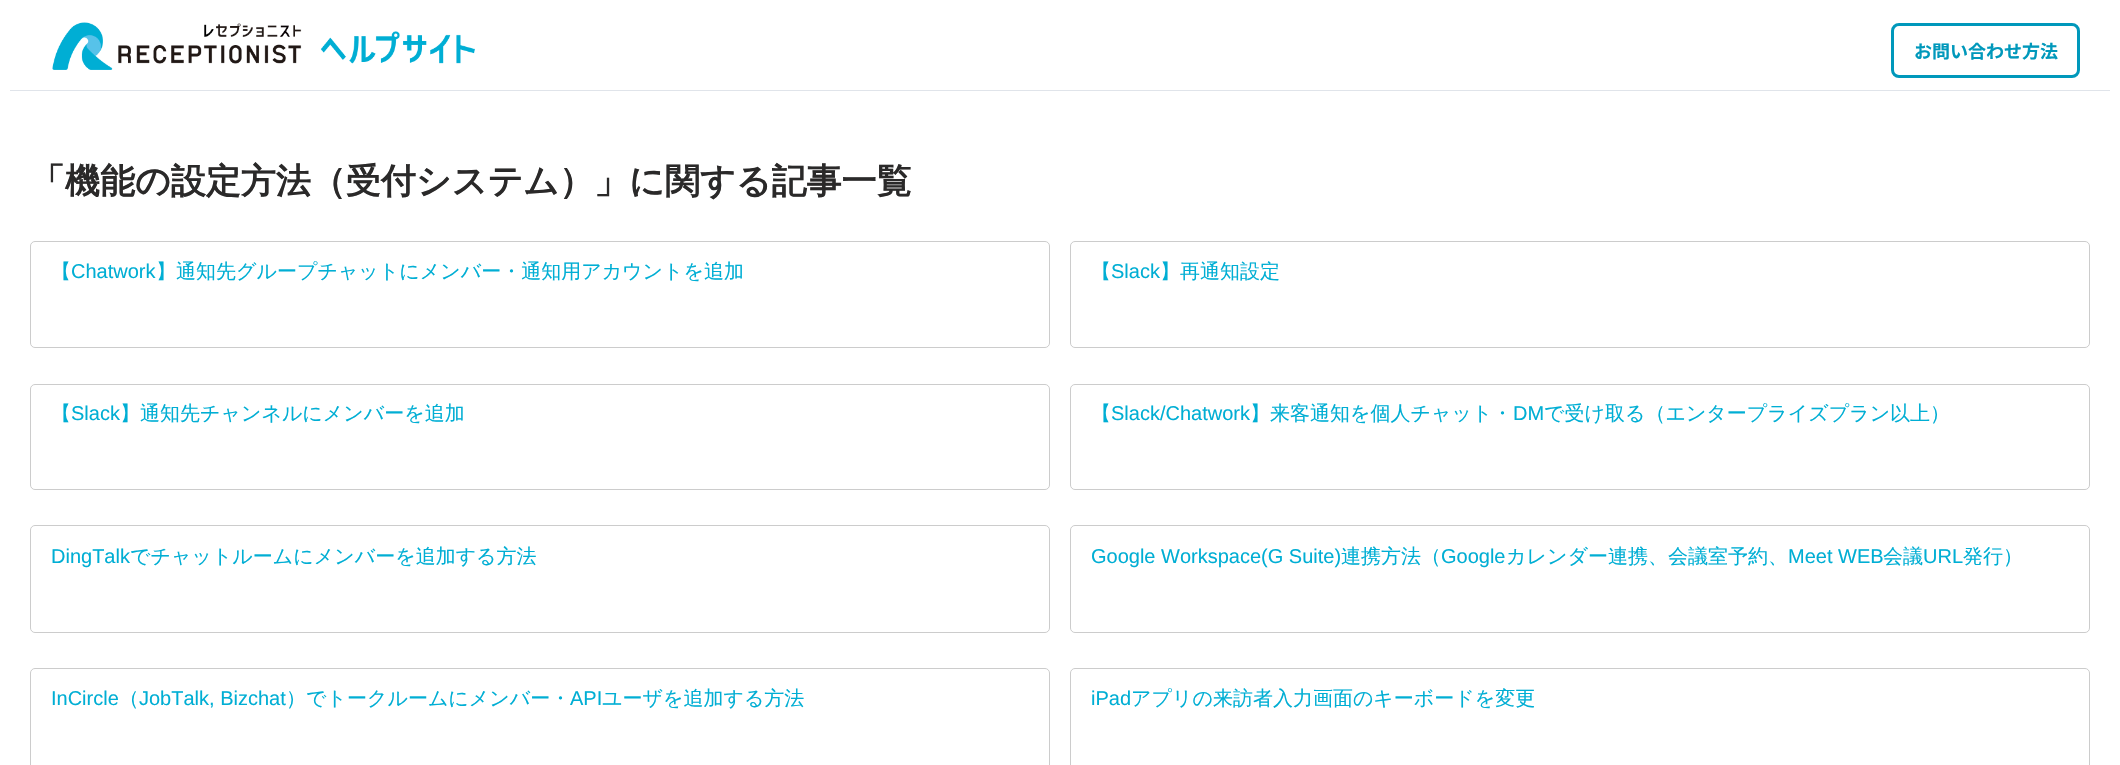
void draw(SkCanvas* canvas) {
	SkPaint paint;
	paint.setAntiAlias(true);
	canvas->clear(0xffffffff);
	paint.setColor(0xffe0e4ea);
	canvas->drawRect(SkRect::MakeXYWH(10, 90, 2100, 1), paint);
	canvas->drawImageRect(SkImages::DeferredFromEncodedData(SkData::MakeFromFileName("img1.png")), SkRect::MakeXYWH(52, 22, 423, 48), SkSamplingOptions());
	paint.setStroke(true);
	paint.setStrokeWidth(3);
	paint.setColor(0xff0098bb);
	canvas->drawRoundRect(SkRect::MakeXYWH(1892.5, 24.5, 186, 52), 6.5, 6.5, paint);
	SkFont f1(fontMgr->matchFamilyStyle("Noto Sans JP", SkFontStyle::Bold()), 18);
	f1.setSubpixel(true);
	paint.setStroke(false);
	canvas->drawString("お問い合わせ方法", 1914, 58, f1, paint);
	SkFont f2(fontMgr->matchFamilyStyle("WenQuanYi Zen Hei", SkFontStyle::Bold()), 35);
	f2.setSubpixel(true);
	paint.setColor(0xff2a2929);
	canvas->drawString("「機能の設定方法（受付システム）」に関する記事一覧", 30, 193, f2, paint);
	paint.setStroke(true);
	paint.setStrokeWidth(1);
	paint.setColor(0xffcccccc);
	canvas->drawRoundRect(SkRect::MakeXYWH(30.5, 241.5, 1019, 106), 4.5, 4.5, paint);
	SkFont f3(fontMgr->matchFamilyStyle("WenQuanYi Zen Hei", SkFontStyle(500, SkFontStyle::kNormal_Width, SkFontStyle::kUpright_Slant)), 20);
	f3.setSubpixel(true);
	paint.setStroke(false);
	paint.setColor(0xff00aed4);
	canvas->drawString("【", 51, 278, f3, paint);
	SkFont f4(fontMgr->matchFamilyStyle("Liberation Sans", SkFontStyle::Normal()), 20);
	f4.setSubpixel(true);
	canvas->drawString("Chatwork", 71, 278, f4, paint);
	canvas->drawString("】通知先グループチャットにメンバー・通知用アカウントを追加", 156, 278, f3, paint);
	paint.setStroke(true);
	paint.setColor(0xffcccccc);
	canvas->drawRoundRect(SkRect::MakeXYWH(1070.5, 241.5, 1019, 106), 4.5, 4.5, paint);
	paint.setStroke(false);
	paint.setColor(0xff00aed4);
	canvas->drawString("【", 1091, 278, f3, paint);
	canvas->drawString("Slack", 1111, 278, f4, paint);
	canvas->drawString("】再通知設定", 1160, 278, f3, paint);
	paint.setStroke(true);
	paint.setColor(0xffcccccc);
	canvas->drawRoundRect(SkRect::MakeXYWH(30.5, 384.5, 1019, 105), 4.5, 4.5, paint);
	paint.setStroke(false);
	paint.setColor(0xff00aed4);
	canvas->drawString("【", 51, 420, f3, paint);
	canvas->drawString("Slack", 71, 420, f4, paint);
	canvas->drawString("】通知先チャンネルにメンバーを追加", 120, 420, f3, paint);
	paint.setStroke(true);
	paint.setColor(0xffcccccc);
	canvas->drawRoundRect(SkRect::MakeXYWH(1070.5, 384.5, 1019, 105), 4.5, 4.5, paint);
	paint.setStroke(false);
	paint.setColor(0xff00aed4);
	canvas->drawString("【", 1091, 420, f3, paint);
	canvas->drawString("Slack/Chatwork", 1111, 420, f4, paint);
	canvas->drawString("】来客通知を個人チャット・", 1250, 420, f3, paint);
	canvas->drawString("DM", 1513, 420, f4, paint);
	canvas->drawString("で受け取る（エンタープライズプラン以上）", 1544, 420, f3, paint);
	paint.setStroke(true);
	paint.setColor(0xffcccccc);
	canvas->drawRoundRect(SkRect::MakeXYWH(30.5, 525.5, 1019, 107), 4.5, 4.5, paint);
	paint.setStroke(false);
	paint.setColor(0xff00aed4);
	canvas->drawString("DingTalk", 51, 563, f4, paint);
	canvas->drawString("でチャットルームにメンバーを追加する方法", 130, 563, f3, paint);
	paint.setStroke(true);
	paint.setColor(0xffcccccc);
	canvas->drawRoundRect(SkRect::MakeXYWH(1070.5, 525.5, 1019, 107), 4.5, 4.5, paint);
	paint.setStroke(false);
	paint.setColor(0xff00aed4);
	canvas->drawString("Google Workspace(G Suite)", 1091, 563, f4, paint);
	canvas->drawString("連携方法（", 1341, 563, f3, paint);
	canvas->drawString("Google", 1441, 563, f4, paint);
	canvas->drawString("カレンダー連携、会議室予約、", 1506, 563, f3, paint);
	canvas->drawString("Meet WEB", 1788, 563, f4, paint);
	canvas->drawString("会議", 1883, 563, f3, paint);
	canvas->drawString("URL", 1923, 563, f4, paint);
	canvas->drawString("発行）", 1963, 563, f3, paint);
	paint.setStroke(true);
	paint.setColor(0xffcccccc);
	canvas->drawRoundRect(SkRect::MakeXYWH(30.5, 668.5, 1019, 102), 4.5, 4.5, paint);
	paint.setStroke(false);
	paint.setColor(0xff00aed4);
	canvas->drawString("InCircle", 51, 705, f4, paint);
	canvas->drawString("（", 119, 705, f3, paint);
	canvas->drawString("JobTalk, Bizchat", 139, 705, f4, paint);
	canvas->drawString("）でトークルームにメンバー・", 286, 705, f3, paint);
	canvas->drawString("API", 570, 705, f4, paint);
	canvas->drawString("ユーザを追加する方法", 602, 705, f3, paint);
	paint.setStroke(true);
	paint.setColor(0xffcccccc);
	canvas->drawRoundRect(SkRect::MakeXYWH(1070.5, 668.5, 1019, 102), 4.5, 4.5, paint);
	paint.setStroke(false);
	paint.setColor(0xff00aed4);
	canvas->drawString("iPad", 1091, 705, f4, paint);
	canvas->drawString("アプリの来訪者入力画面のキーボードを変更", 1131, 705, f3, paint);
}
